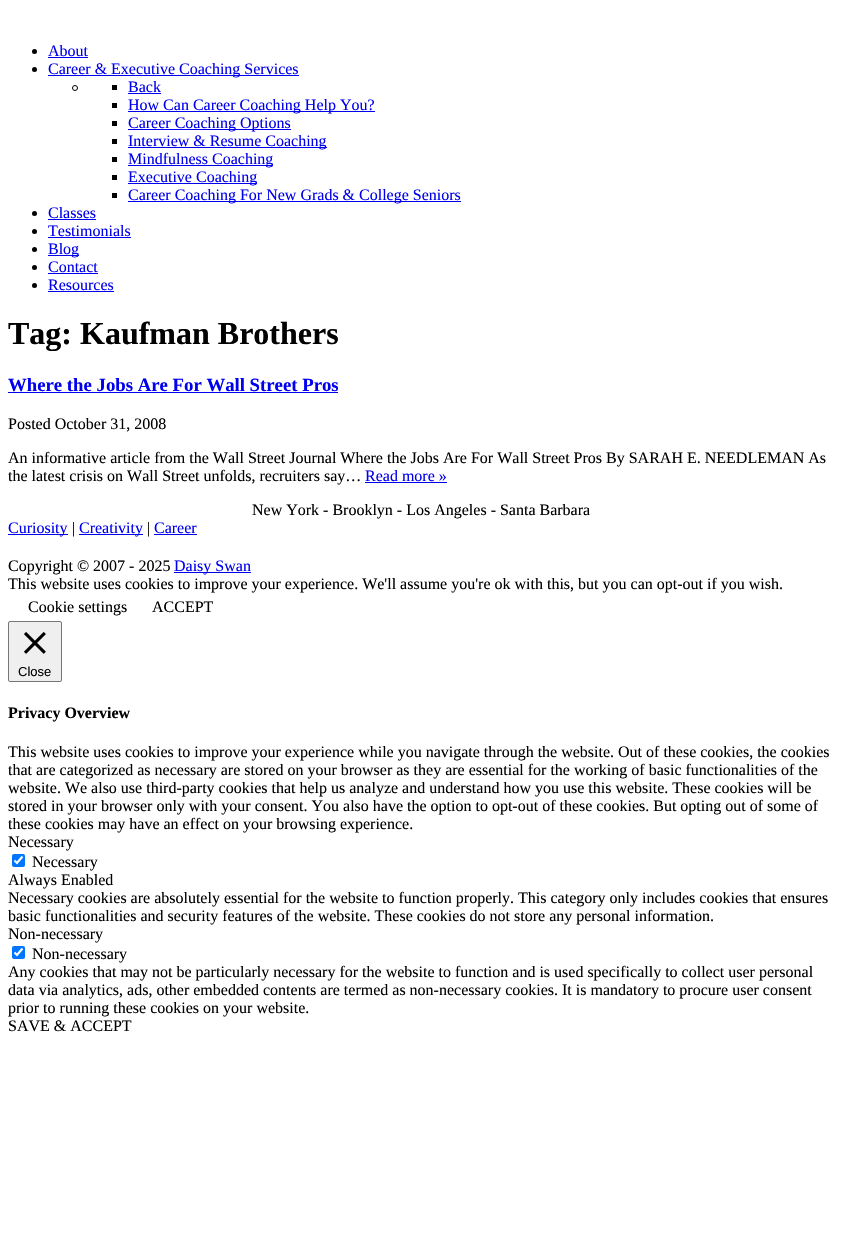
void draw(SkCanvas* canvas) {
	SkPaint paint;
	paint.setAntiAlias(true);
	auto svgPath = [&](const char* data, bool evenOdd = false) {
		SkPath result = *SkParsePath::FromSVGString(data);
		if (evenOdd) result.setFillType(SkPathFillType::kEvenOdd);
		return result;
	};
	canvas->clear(0xffffffff);
	paint.setColor(0xff000000);
	canvas->drawCircle(34.5, 51.5, 2.5, paint);
	SkFont f1(fontMgr->matchFamilyStyle("Liberation Serif", SkFontStyle::Normal()), 16);
	f1.setSubpixel(true);
	paint.setColor(0xff0000ee);
	canvas->drawString("About", 48, 56, f1, paint);
	canvas->drawRect(SkRect::MakeXYWH(48, 57, 40, 1), paint);
	paint.setColor(0xff000000);
	canvas->drawCircle(34.5, 69.5, 2.5, paint);
	paint.setColor(0xff0000ee);
	canvas->drawRect(SkRect::MakeXYWH(48, 75, 251, 1), paint);
	canvas->drawString("Career & Executive Coaching Services", 48, 74, f1, paint);
	paint.setStroke(true);
	paint.setStrokeWidth(1);
	paint.setColor(0xff000000);
	canvas->drawCircle(75, 88, 2.5, paint);
	paint.setStroke(false);
	canvas->drawRect(SkRect::MakeXYWH(112, 85, 5, 5), paint);
	paint.setColor(0xff0000ee);
	canvas->drawString("Back", 128, 92, f1, paint);
	canvas->drawRect(SkRect::MakeXYWH(128, 93, 33, 1), paint);
	paint.setColor(0xff000000);
	canvas->drawRect(SkRect::MakeXYWH(112, 103, 5, 5), paint);
	paint.setColor(0xff0000ee);
	canvas->drawRect(SkRect::MakeXYWH(128, 111, 247, 1), paint);
	canvas->drawString("How Can Career Coaching Help You?", 128, 110, f1, paint);
	paint.setColor(0xff000000);
	canvas->drawRect(SkRect::MakeXYWH(112, 121, 5, 5), paint);
	paint.setColor(0xff0000ee);
	canvas->drawRect(SkRect::MakeXYWH(128, 129, 163, 1), paint);
	canvas->drawString("Career Coaching Options", 128, 128, f1, paint);
	paint.setColor(0xff000000);
	canvas->drawRect(SkRect::MakeXYWH(112, 139, 5, 5), paint);
	paint.setColor(0xff0000ee);
	canvas->drawRect(SkRect::MakeXYWH(128, 147, 199, 1), paint);
	canvas->drawString("Interview & Resume Coaching", 128, 146, f1, paint);
	paint.setColor(0xff000000);
	canvas->drawRect(SkRect::MakeXYWH(112, 157, 5, 5), paint);
	paint.setColor(0xff0000ee);
	canvas->drawRect(SkRect::MakeXYWH(128, 165, 145, 1), paint);
	canvas->drawString("Mindfulness Coaching", 128, 164, f1, paint);
	paint.setColor(0xff000000);
	canvas->drawRect(SkRect::MakeXYWH(112, 175, 5, 5), paint);
	paint.setColor(0xff0000ee);
	canvas->drawRect(SkRect::MakeXYWH(128, 183, 129, 1), paint);
	canvas->drawString("Executive Coaching", 128, 182, f1, paint);
	paint.setColor(0xff000000);
	canvas->drawRect(SkRect::MakeXYWH(112, 193, 5, 5), paint);
	paint.setColor(0xff0000ee);
	canvas->drawRect(SkRect::MakeXYWH(128, 201, 333, 1), paint);
	canvas->drawString("Career Coaching For New Grads & College Seniors", 128, 200, f1, paint);
	paint.setColor(0xff000000);
	canvas->drawCircle(34.5, 213.5, 2.5, paint);
	paint.setColor(0xff0000ee);
	canvas->drawString("Classes", 48, 218, f1, paint);
	canvas->drawRect(SkRect::MakeXYWH(48, 219, 48, 1), paint);
	paint.setColor(0xff000000);
	canvas->drawCircle(34.5, 231.5, 2.5, paint);
	paint.setColor(0xff0000ee);
	canvas->drawString("Testimonials", 48, 236, f1, paint);
	canvas->drawRect(SkRect::MakeXYWH(48, 237, 83, 1), paint);
	paint.setColor(0xff000000);
	canvas->drawCircle(34.5, 249.5, 2.5, paint);
	paint.setColor(0xff0000ee);
	canvas->drawRect(SkRect::MakeXYWH(48, 255, 31, 1), paint);
	canvas->drawString("Blog", 48, 254, f1, paint);
	paint.setColor(0xff000000);
	canvas->drawCircle(34.5, 267.5, 2.5, paint);
	paint.setColor(0xff0000ee);
	canvas->drawString("Contact", 48, 272, f1, paint);
	canvas->drawRect(SkRect::MakeXYWH(48, 273, 50, 1), paint);
	paint.setColor(0xff000000);
	canvas->drawCircle(34.5, 285.5, 2.5, paint);
	paint.setColor(0xff0000ee);
	canvas->drawString("Resources", 48, 290, f1, paint);
	canvas->drawRect(SkRect::MakeXYWH(48, 291, 66, 1), paint);
	SkFont f2(fontMgr->matchFamilyStyle("Liberation Serif", SkFontStyle::Bold()), 32);
	f2.setSubpixel(true);
	paint.setColor(0xff000000);
	canvas->drawString("Tag: Kaufman Brothers", 8, 344, f2, paint);
	SkFont f3(fontMgr->matchFamilyStyle("Liberation Serif", SkFontStyle::Bold()), 18.75);
	f3.setSubpixel(true);
	paint.setColor(0xff0000ee);
	canvas->drawString("Where the Jobs Are For Wall Street Pros", 8, 391, f3, paint);
	canvas->drawRect(SkRect::MakeXYWH(8, 392, 330, 1), paint);
	paint.setColor(0xff000000);
	canvas->drawString("Posted October 31, 2008", 8, 429, f1, paint);
	canvas->drawString("An informative article from the Wall Street Journal Where the Jobs Are For Wall Street Pros By SARAH E. NEEDLEMAN As", 8, 463, f1, paint);
	canvas->drawString("the latest crisis on Wall Street unfolds, recruiters say…", 8, 481, f1, paint);
	paint.setColor(0xff0000ee);
	canvas->drawString("Read more »", 365, 481, f1, paint);
	canvas->drawRect(SkRect::MakeXYWH(365, 482, 82, 1), paint);
	paint.setColor(0xff000000);
	canvas->drawString("New York - Brooklyn - Los Angeles - Santa Barbara", 252, 515, f1, paint);
	paint.setColor(0xff0000ee);
	canvas->drawRect(SkRect::MakeXYWH(8, 534, 60, 1), paint);
	canvas->drawString("Curiosity", 8, 533, f1, paint);
	paint.setColor(0xff000000);
	canvas->drawString("|", 72, 533, f1, paint);
	paint.setColor(0xff0000ee);
	canvas->drawRect(SkRect::MakeXYWH(79, 534, 64, 1), paint);
	canvas->drawString("Creativity", 79, 533, f1, paint);
	paint.setColor(0xff000000);
	canvas->drawString("|", 147, 533, f1, paint);
	paint.setColor(0xff0000ee);
	canvas->drawString("Career", 154, 533, f1, paint);
	canvas->drawRect(SkRect::MakeXYWH(154, 534, 43, 1), paint);
	paint.setColor(0xff000000);
	canvas->drawString("Copyright © 2007 - 2025", 8, 571, f1, paint);
	paint.setColor(0xff0000ee);
	canvas->drawRect(SkRect::MakeXYWH(174, 572, 77, 1), paint);
	canvas->drawString("Daisy Swan", 174, 571, f1, paint);
	paint.setColor(0xff000000);
	canvas->drawString("This website uses cookies to improve your experience. We'll assume you're ok with this, but you can opt-out if you wish.", 8, 589, f1, paint);
	canvas->drawString("Cookie settings", 28, 612, f1, paint);
	canvas->drawString("ACCEPT", 152, 612, f1, paint);
	paint.setColor(0xffefefef);
	canvas->drawRoundRect(SkRect::MakeXYWH(8.5, 621.5, 53, 60), 1.5, 1.5, paint);
	paint.setStroke(true);
	paint.setColor(0xff767676);
	canvas->drawRoundRect(SkRect::MakeXYWH(8.5, 621.5, 53, 60), 1.5, 1.5, paint);
	canvas->drawImageRect(SkImages::DeferredFromEncodedData(SkData::MakeFromFileName("img1.png")), SkRect::MakeXYWH(24, 632, 22, 22), SkSamplingOptions());
	SkFont f4(fontMgr->matchFamilyStyle("Liberation Sans", SkFontStyle::Normal()), 13);
	f4.setSubpixel(true);
	paint.setStroke(false);
	paint.setColor(0xff000000);
	canvas->drawString("Close", 18, 676, f4, paint);
	SkFont f5(fontMgr->matchFamilyStyle("Liberation Serif", SkFontStyle::Bold()), 16);
	f5.setSubpixel(true);
	canvas->drawString("Privacy Overview", 8, 718, f5, paint);
	canvas->drawString("This website uses cookies to improve your experience while you navigate through the website. Out of these cookies, the cookies", 8, 757, f1, paint);
	canvas->drawString("that are categorized as necessary are stored on your browser as they are essential for the working of basic functionalities of the", 8, 775, f1, paint);
	canvas->drawString("website. We also use third-party cookies that help us analyze and understand how you use this website. These cookies will be", 8, 793, f1, paint);
	canvas->drawString("stored in your browser only with your consent. You also have the option to opt-out of these cookies. But opting out of some of", 8, 811, f1, paint);
	canvas->drawString("these cookies may have an effect on your browsing experience.", 8, 829, f1, paint);
	canvas->drawString("Necessary", 8, 847, f1, paint);
	paint.setColor(0xff0075ff);
	canvas->drawRoundRect(SkRect::MakeXYWH(12, 854, 13, 13), 2, 2, paint);
	paint.setStroke(true);
	paint.setStrokeWidth(2.1);
	paint.setColor(0xffffffff);
	canvas->drawPath(svgPath("M14.5 860.5L17 863L22.5 856.5"), paint);
	paint.setStroke(false);
	paint.setColor(0xff000000);
	canvas->drawString("Necessary", 32, 867, f1, paint);
	canvas->drawString("Always Enabled", 8, 885, f1, paint);
	canvas->drawString("Necessary cookies are absolutely essential for the website to function properly. This category only includes cookies that ensures", 8, 903, f1, paint);
	canvas->drawString("basic functionalities and security features of the website. These cookies do not store any personal information.", 8, 921, f1, paint);
	canvas->drawString("Non-necessary", 8, 939, f1, paint);
	paint.setColor(0xff0075ff);
	canvas->drawRoundRect(SkRect::MakeXYWH(12, 946, 13, 13), 2, 2, paint);
	paint.setStroke(true);
	paint.setColor(0xffffffff);
	canvas->drawPath(svgPath("M14.5 952.5L17 955L22.5 948.5"), paint);
	paint.setStroke(false);
	paint.setColor(0xff000000);
	canvas->drawString("Non-necessary", 32, 959, f1, paint);
	canvas->drawString("Any cookies that may not be particularly necessary for the website to function and is used specifically to collect user personal", 8, 977, f1, paint);
	canvas->drawString("data via analytics, ads, other embedded contents are termed as non-necessary cookies. It is mandatory to procure user consent", 8, 995, f1, paint);
	canvas->drawString("prior to running these cookies on your website.", 8, 1013, f1, paint);
	canvas->drawString("SAVE & ACCEPT", 8, 1031, f1, paint);
}
